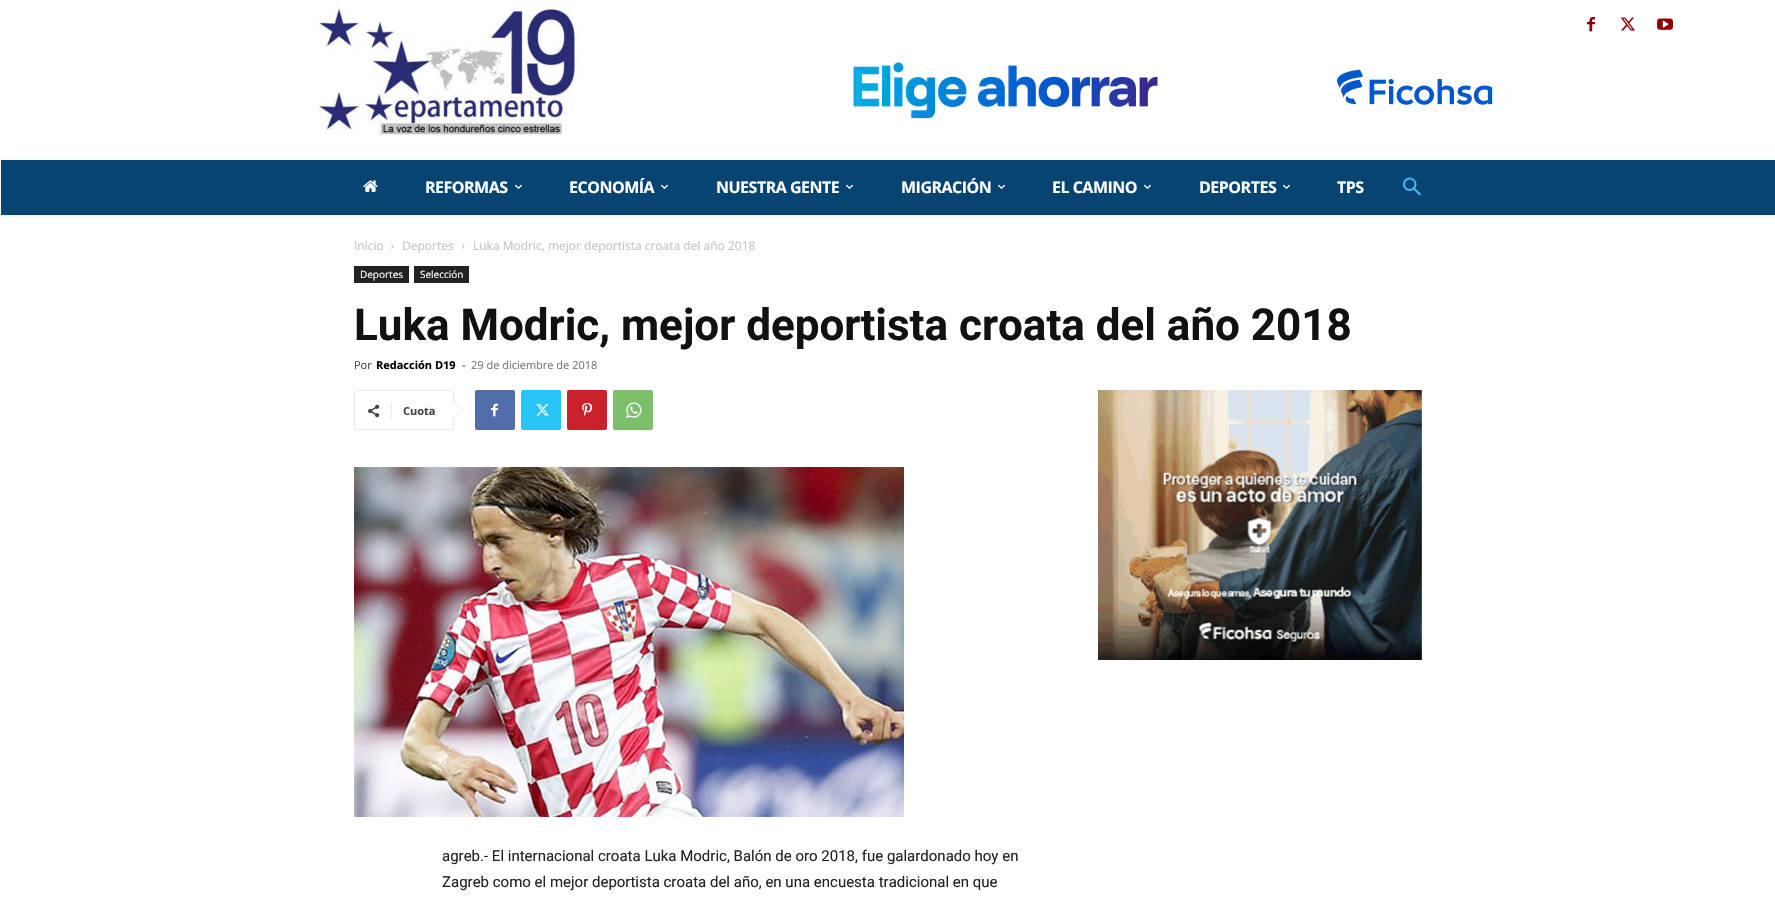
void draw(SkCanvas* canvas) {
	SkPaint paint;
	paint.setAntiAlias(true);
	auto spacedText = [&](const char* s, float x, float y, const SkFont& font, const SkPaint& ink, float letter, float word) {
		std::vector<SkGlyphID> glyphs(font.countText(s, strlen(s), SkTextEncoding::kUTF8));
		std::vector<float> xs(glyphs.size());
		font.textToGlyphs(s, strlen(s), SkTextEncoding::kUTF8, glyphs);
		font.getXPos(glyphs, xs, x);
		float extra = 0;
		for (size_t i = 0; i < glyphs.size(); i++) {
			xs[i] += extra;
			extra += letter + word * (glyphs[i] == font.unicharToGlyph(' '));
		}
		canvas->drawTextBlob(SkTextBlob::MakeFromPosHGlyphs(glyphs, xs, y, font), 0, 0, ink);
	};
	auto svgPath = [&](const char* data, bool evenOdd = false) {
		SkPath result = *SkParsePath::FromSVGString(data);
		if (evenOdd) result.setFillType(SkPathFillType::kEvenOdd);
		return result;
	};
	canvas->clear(0xffffffff);
	canvas->drawImageRect(SkImages::DeferredFromEncodedData(SkData::MakeFromFileName("img1.png")), SkRect::MakeXYWH(317, 5, 264, 132), SkSamplingOptions());
	canvas->drawImageRect(SkImages::DeferredFromEncodedData(SkData::MakeFromFileName("img2.png")), SkRect::MakeXYWH(1587, 16, 8, 16), SkSamplingOptions());
	canvas->drawImageRect(SkImages::DeferredFromEncodedData(SkData::MakeFromFileName("img3.png")), SkRect::MakeXYWH(1620, 17, 15, 14), SkSamplingOptions());
	canvas->drawImageRect(SkImages::DeferredFromEncodedData(SkData::MakeFromFileName("img4.png")), SkRect::MakeXYWH(1657, 18, 16, 12), SkSamplingOptions());
	canvas->drawImageRect(SkImages::DeferredFromEncodedData(SkData::MakeFromFileName("img5.png")), SkRect::MakeXYWH(853, 62, 666, 57), SkSamplingOptions());
	paint.setColor(0xff084472);
	canvas->drawRect(SkRect::MakeXYWH(1, 160, 1774, 55), paint);
	canvas->save();
	canvas->clipRect(SkRect::MakeXYWH(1, 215, 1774, 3));
	paint.setColor(0x0f000000);
	paint.setMaskFilter(SkMaskFilter::MakeBlur(kNormal_SkBlurStyle, 2));
	canvas->drawRect(SkRect::MakeXYWH(1, 162, 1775, 55), paint);
	paint.setMaskFilter(nullptr);
	canvas->restore();
	canvas->drawImageRect(SkImages::DeferredFromEncodedData(SkData::MakeFromFileName("img6.png")), SkRect::MakeXYWH(363, 180, 15, 12), SkSamplingOptions());
	SkFont f1(fontMgr->matchFamilyStyle("Open Sans", SkFontStyle::Bold()), 16);
	f1.setSubpixel(true);
	paint.setColor(0xffffffff);
	spacedText("REFORMAS", 425, 193, f1, paint, -0.5, 0);
	canvas->drawImageRect(SkImages::DeferredFromEncodedData(SkData::MakeFromFileName("img7.png")), SkRect::MakeXYWH(515, 184, 7, 5), SkSamplingOptions());
	spacedText("ECONOMÍA", 569, 193, f1, paint, -0.5, 0);
	canvas->drawImageRect(SkImages::DeferredFromEncodedData(SkData::MakeFromFileName("img7.png")), SkRect::MakeXYWH(661, 184, 7, 5), SkSamplingOptions());
	spacedText("NUESTRA GENTE", 716, 193, f1, paint, -0.5, 0);
	canvas->drawImageRect(SkImages::DeferredFromEncodedData(SkData::MakeFromFileName("img7.png")), SkRect::MakeXYWH(846, 184, 7, 5), SkSamplingOptions());
	spacedText("MIGRACIÓN", 901, 193, f1, paint, -0.5, 0);
	canvas->drawImageRect(SkImages::DeferredFromEncodedData(SkData::MakeFromFileName("img7.png")), SkRect::MakeXYWH(998, 184, 7, 5), SkSamplingOptions());
	spacedText("EL CAMINO", 1052, 193, f1, paint, -0.5, 0);
	canvas->drawImageRect(SkImages::DeferredFromEncodedData(SkData::MakeFromFileName("img7.png")), SkRect::MakeXYWH(1144, 184, 7, 5), SkSamplingOptions());
	spacedText("DEPORTES", 1199, 193, f1, paint, -0.5, 0);
	canvas->drawImageRect(SkImages::DeferredFromEncodedData(SkData::MakeFromFileName("img7.png")), SkRect::MakeXYWH(1283, 184, 7, 5), SkSamplingOptions());
	spacedText("TPS", 1337, 193, f1, paint, -0.5, 0);
	canvas->drawImageRect(SkImages::DeferredFromEncodedData(SkData::MakeFromFileName("img8.png")), SkRect::MakeXYWH(1403, 177, 18, 19), SkSamplingOptions());
	SkFont f2(fontMgr->matchFamilyStyle("Open Sans", SkFontStyle::Normal()), 12);
	f2.setSubpixel(true);
	paint.setColor(0xffc3c3c3);
	canvas->drawString("Inicio", 354, 250, f2, paint);
	canvas->drawImageRect(SkImages::DeferredFromEncodedData(SkData::MakeFromFileName("img9.png")), SkRect::MakeXYWH(391, 244, 3, 5), SkSamplingOptions());
	canvas->drawString("Deportes", 402, 250, f2, paint);
	canvas->drawImageRect(SkImages::DeferredFromEncodedData(SkData::MakeFromFileName("img9.png")), SkRect::MakeXYWH(462, 244, 3, 5), SkSamplingOptions());
	canvas->drawString("Luka Modric, mejor deportista croata del año 2018", 473, 250, f2, paint);
	paint.setColor(0xff222222);
	canvas->drawRect(SkRect::MakeXYWH(354, 266, 55, 17), paint);
	SkFont f3(fontMgr->matchFamilyStyle("Open Sans", SkFontStyle::Normal()), 10);
	f3.setSubpixel(true);
	paint.setColor(0xffffffff);
	canvas->drawString("Deportes", 360, 278, f3, paint);
	paint.setColor(0xff222222);
	canvas->drawRect(SkRect::MakeXYWH(414, 266, 55, 17), paint);
	paint.setColor(0xffffffff);
	canvas->drawString("Selección", 420, 278, f3, paint);
	SkFont f4(fontMgr->matchFamilyStyle("Roboto", SkFontStyle::Bold()), 44);
	f4.setSubpixel(true);
	paint.setColor(0xff111111);
	canvas->drawString("Luka Modric, mejor deportista croata del año 2018", 354, 340, f4, paint);
	SkFont f5(fontMgr->matchFamilyStyle("Open Sans", SkFontStyle::Normal()), 11);
	f5.setSubpixel(true);
	paint.setColor(0xff444444);
	canvas->drawString("Por", 354, 369, f5, paint);
	SkFont f6(fontMgr->matchFamilyStyle("Open Sans", SkFontStyle::Bold()), 11);
	f6.setSubpixel(true);
	paint.setColor(0xff000000);
	canvas->drawString("Redacción D19", 376, 369, f6, paint);
	paint.setColor(0xff444444);
	canvas->drawString("-", 462, 369, f5, paint);
	paint.setColor(0xff767676);
	canvas->drawString("29 de diciembre de 2018", 471, 369, f5, paint);
	paint.setStroke(true);
	paint.setStrokeWidth(1);
	paint.setColor(0xffe9e9e9);
	canvas->drawRoundRect(SkRect::MakeXYWH(354.5, 390.5, 99, 39), 1.5, 1.5, paint);
	paint.setStroke(false);
	canvas->drawPath(svgPath("M453 419V401L464 410Z"), paint);
	canvas->drawImageRect(SkImages::DeferredFromEncodedData(SkData::MakeFromFileName("img10.png")), SkRect::MakeXYWH(368, 404, 12, 14), SkSamplingOptions());
	paint.setColor(0xffebebeb);
	canvas->drawRect(SkRect::MakeXYWH(391, 403, 1, 16), paint);
	paint.setColor(0xff444444);
	canvas->drawString("Cuota", 403, 415, f6, paint);
	paint.setColor(0xffffffff);
	canvas->drawPath(svgPath("M453 418V402L463 410Z"), paint);
	paint.setColor(0xff516eab);
	canvas->drawRoundRect(SkRect::MakeXYWH(475, 390, 40, 40), 2, 2, paint);
	canvas->drawImageRect(SkImages::DeferredFromEncodedData(SkData::MakeFromFileName("img11.png")), SkRect::MakeXYWH(491, 403, 7, 14), SkSamplingOptions());
	paint.setColor(0xff29c5f6);
	canvas->drawRoundRect(SkRect::MakeXYWH(521, 390, 40, 40), 2, 2, paint);
	canvas->drawImageRect(SkImages::DeferredFromEncodedData(SkData::MakeFromFileName("img12.png")), SkRect::MakeXYWH(536, 404, 13, 12), SkSamplingOptions());
	paint.setColor(0xffca212a);
	canvas->drawRoundRect(SkRect::MakeXYWH(567, 390, 40, 40), 2, 2, paint);
	canvas->drawImageRect(SkImages::DeferredFromEncodedData(SkData::MakeFromFileName("img13.png")), SkRect::MakeXYWH(582, 402, 11, 14), SkSamplingOptions());
	paint.setColor(0xff7bbf6a);
	canvas->drawRoundRect(SkRect::MakeXYWH(613, 390, 40, 40), 2, 2, paint);
	canvas->drawImageRect(SkImages::DeferredFromEncodedData(SkData::MakeFromFileName("img14.png")), SkRect::MakeXYWH(626, 402, 16, 16), SkSamplingOptions());
	canvas->drawImageRect(SkImages::DeferredFromEncodedData(SkData::MakeFromFileName("img15.png")), SkRect::MakeXYWH(354, 467, 550, 350), SkSamplingOptions());
	SkFont f7(fontMgr->matchFamilyStyle("Roboto", SkFontStyle::Normal()), 15);
	f7.setSubpixel(true);
	paint.setColor(0xff222222);
	canvas->drawString("agreb.- El internacional croata Luka Modric, Balón de oro 2018, fue galardonado hoy en", 442, 861, f7, paint);
	canvas->drawString("Zagreb como el mejor deportista croata del año, en una encuesta tradicional en que", 442, 887, f7, paint);
	canvas->drawImageRect(SkImages::DeferredFromEncodedData(SkData::MakeFromFileName("img16.png")), SkRect::MakeXYWH(1098, 390, 324, 270), SkSamplingOptions());
}
